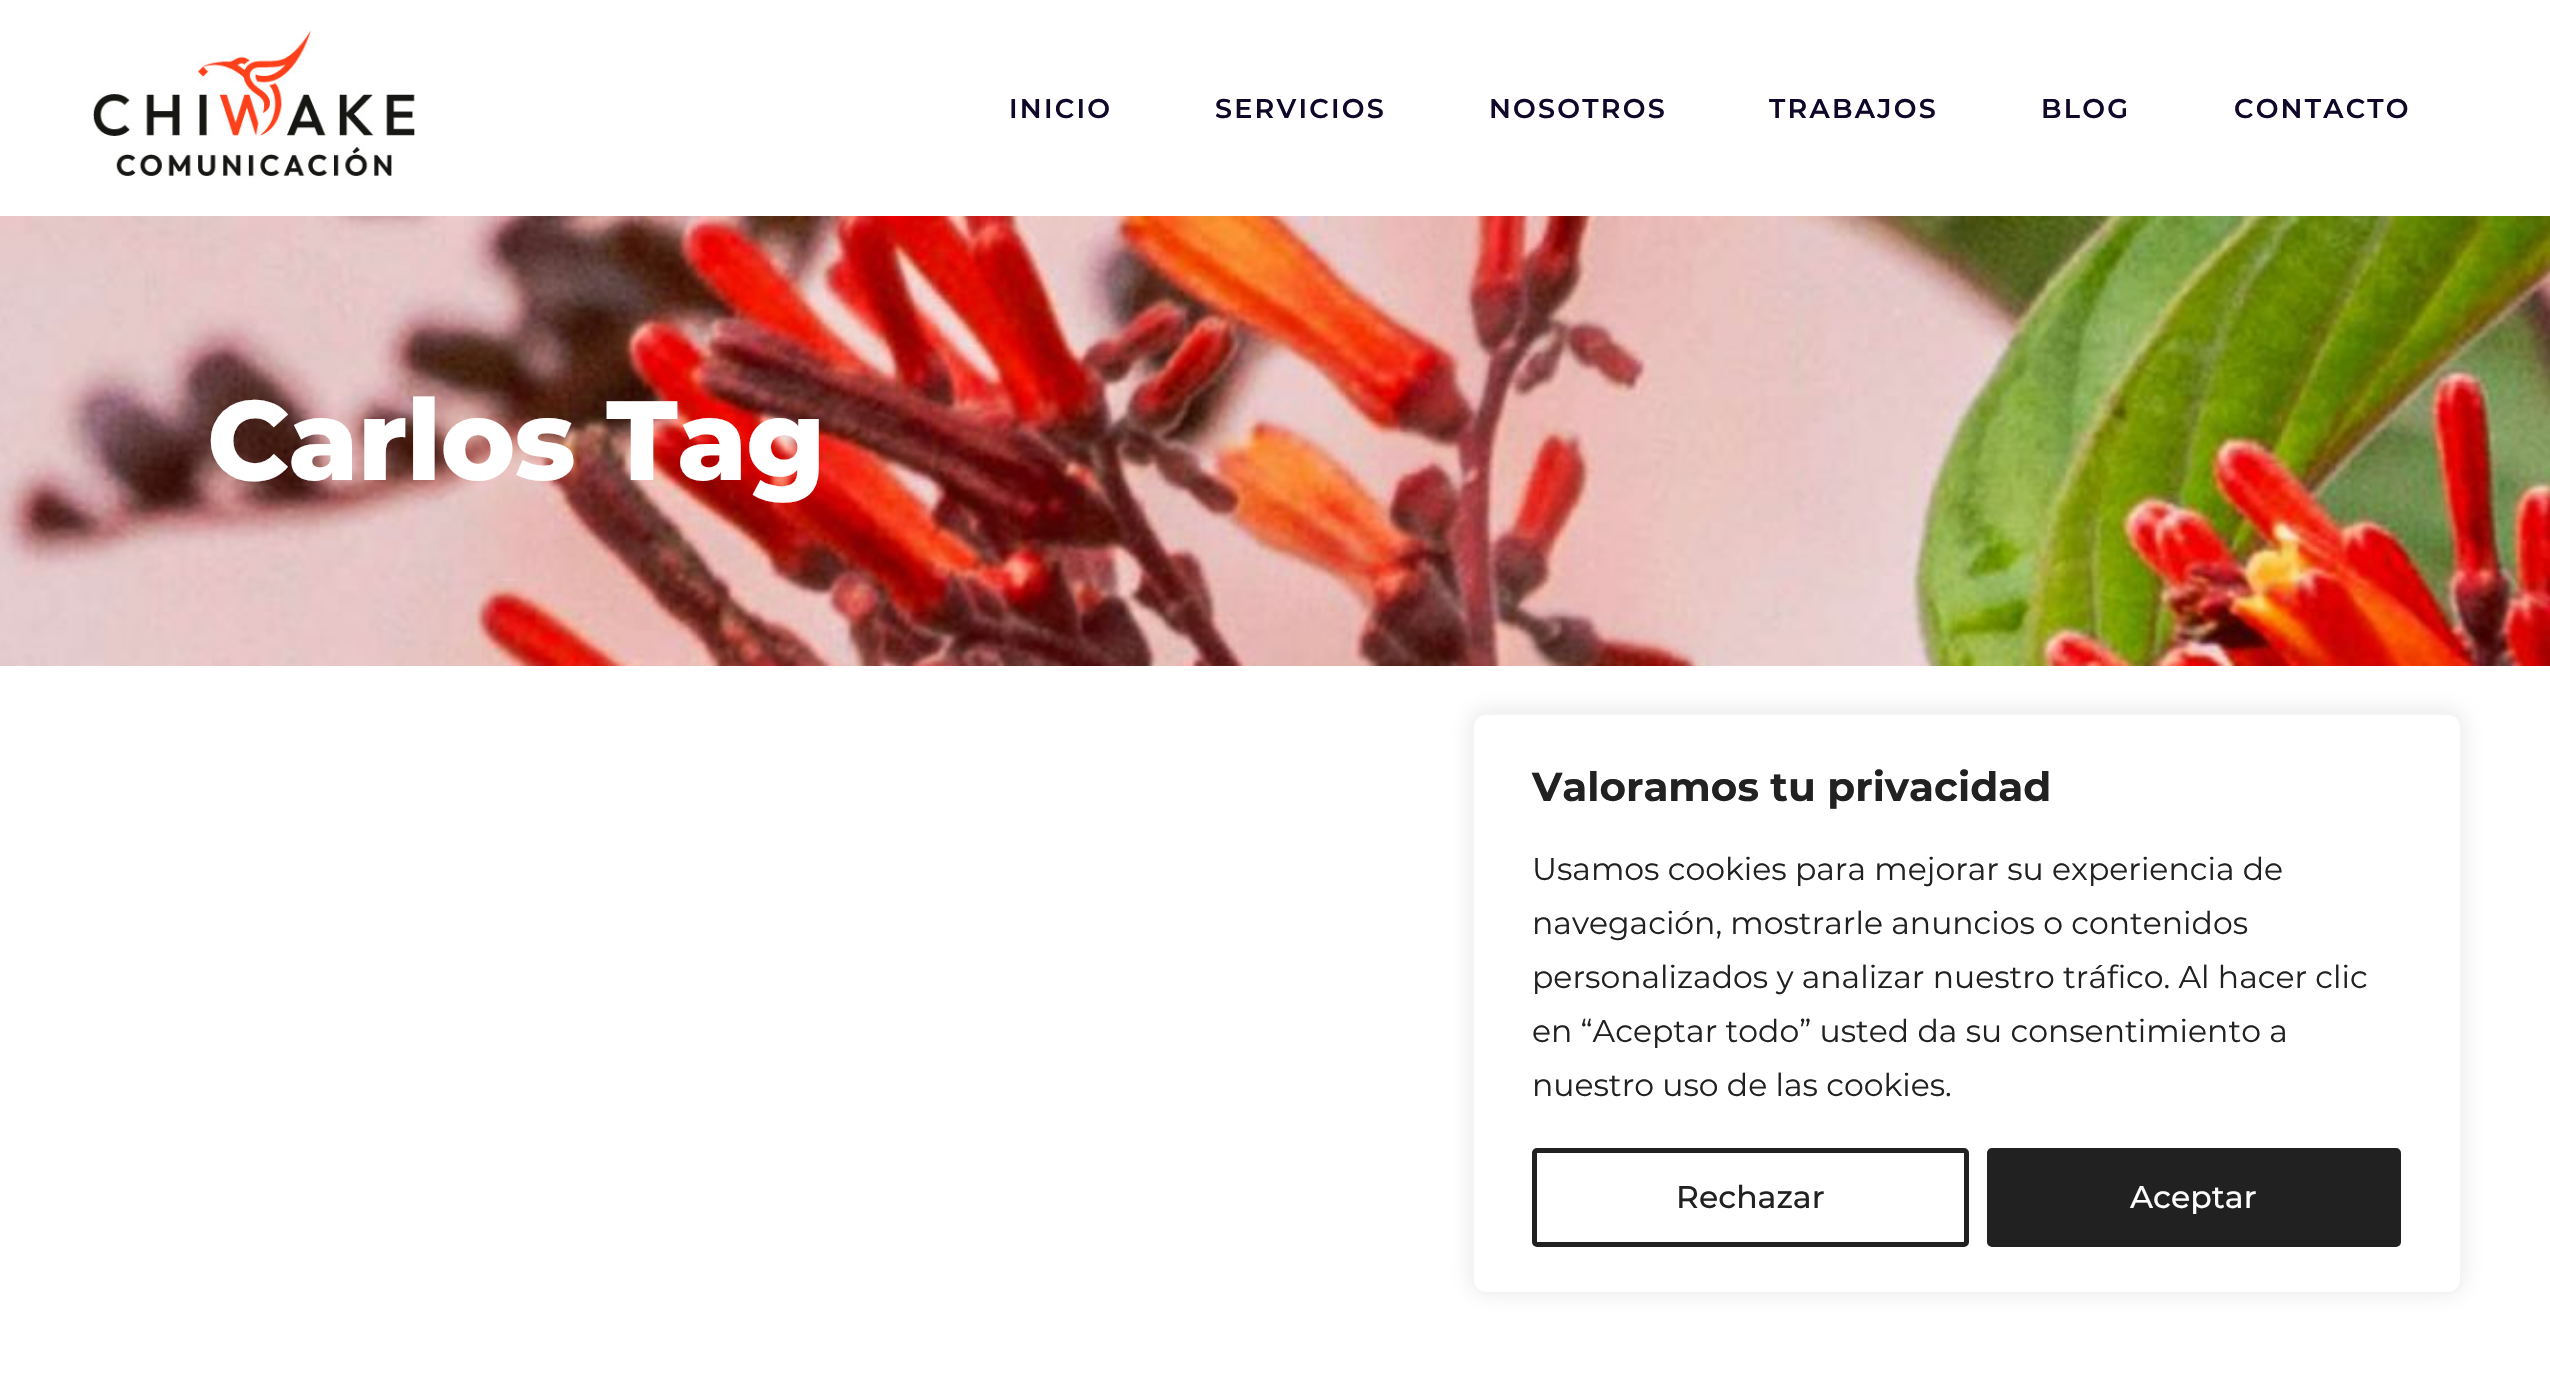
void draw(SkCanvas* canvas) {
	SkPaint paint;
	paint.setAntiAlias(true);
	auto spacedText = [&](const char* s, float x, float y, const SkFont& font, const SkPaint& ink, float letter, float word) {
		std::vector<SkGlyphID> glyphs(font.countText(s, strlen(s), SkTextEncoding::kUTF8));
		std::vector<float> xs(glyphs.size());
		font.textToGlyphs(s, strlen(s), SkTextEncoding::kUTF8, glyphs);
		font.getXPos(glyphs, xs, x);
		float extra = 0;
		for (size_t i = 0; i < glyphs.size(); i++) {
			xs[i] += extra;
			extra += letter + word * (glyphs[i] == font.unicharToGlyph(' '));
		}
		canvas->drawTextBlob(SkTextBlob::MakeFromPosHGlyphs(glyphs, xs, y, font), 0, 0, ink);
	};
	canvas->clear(0xffffffff);
	canvas->drawImageRect(SkImages::DeferredFromEncodedData(SkData::MakeFromFileName("img1.png")), SkRect::MakeXYWH(93, 29, 322, 149), SkSamplingOptions());
	SkFont f1(fontMgr->matchFamilyStyle("Montserrat", SkFontStyle(600, SkFontStyle::kNormal_Width, SkFontStyle::kUpright_Slant)), 27);
	f1.setSubpixel(true);
	paint.setColor(0xff110729);
	spacedText("INICIO", 1009, 118, f1, paint, 2.25, 0);
	spacedText("SERVICIOS", 1215, 118, f1, paint, 2.25, 0);
	spacedText("NOSOTROS", 1489, 118, f1, paint, 2.25, 0);
	spacedText("TRABAJOS", 1769, 118, f1, paint, 2.25, 0);
	spacedText("BLOG", 2041, 118, f1, paint, 2.25, 0);
	spacedText("CONTACTO", 2234, 118, f1, paint, 2.25, 0);
	canvas->drawImageRect(SkImages::DeferredFromEncodedData(SkData::MakeFromFileName("img2.png")), SkRect::MakeXYWH(0, 216, 2550, 450), SkSamplingOptions());
	SkFont f2(fontMgr->matchFamilyStyle("Montserrat", SkFontStyle(800, SkFontStyle::kNormal_Width, SkFontStyle::kUpright_Slant)), 112.5);
	f2.setSubpixel(true);
	paint.setColor(0xffffffff);
	spacedText("Carlos Tag", 207, 480, f2, paint, -1.1, 0);
	paint.setColor(0x4dacabab);
	paint.setMaskFilter(SkMaskFilter::MakeBlur(kNormal_SkBlurStyle, 11));
	canvas->drawRoundRect(SkRect::MakeXYWH(1472, 711, 990, 581), 14, 14, paint);
	paint.setMaskFilter(nullptr);
	paint.setColor(0xffffffff);
	canvas->drawRoundRect(SkRect::MakeXYWH(1473, 714, 988, 579), 13, 13, paint);
	paint.setStroke(true);
	paint.setStrokeWidth(2);
	paint.setColor(0xfff4f4f4);
	canvas->drawRoundRect(SkRect::MakeXYWH(1473, 714, 988, 579), 13, 13, paint);
	SkFont f3(fontMgr->matchFamilyStyle("Montserrat", SkFontStyle::Bold()), 40.5);
	f3.setSubpixel(true);
	paint.setStroke(false);
	paint.setColor(0xff212121);
	canvas->drawString("Valoramos tu privacidad", 1532, 801, f3, paint);
	SkFont f4(fontMgr->matchFamilyStyle("Montserrat", SkFontStyle::Normal()), 31.5);
	f4.setSubpixel(true);
	canvas->drawString("Usamos cookies para mejorar su experiencia de", 1532, 880, f4, paint);
	canvas->drawString("navegación, mostrarle anuncios o contenidos", 1532, 934, f4, paint);
	canvas->drawString("personalizados y analizar nuestro tráfico. Al hacer clic", 1532, 988, f4, paint);
	canvas->drawString("en “Aceptar todo” usted da su consentimiento a", 1532, 1042, f4, paint);
	canvas->drawString("nuestro uso de las cookies.", 1532, 1096, f4, paint);
	paint.setStroke(true);
	paint.setStrokeWidth(5);
	canvas->drawRoundRect(SkRect::MakeXYWH(1534.5, 1150.5, 432, 94), 2.5, 2.5, paint);
	SkFont f5(fontMgr->matchFamilyStyle("Montserrat", SkFontStyle(500, SkFontStyle::kNormal_Width, SkFontStyle::kUpright_Slant)), 31.5);
	f5.setSubpixel(true);
	paint.setStroke(false);
	canvas->drawString("Rechazar", 1676, 1208, f5, paint);
	canvas->drawRoundRect(SkRect::MakeXYWH(1989.5, 1150.5, 409, 94), 2.5, 2.5, paint);
	paint.setStroke(true);
	canvas->drawRoundRect(SkRect::MakeXYWH(1989.5, 1150.5, 409, 94), 2.5, 2.5, paint);
	paint.setStroke(false);
	paint.setColor(0xffffffff);
	canvas->drawString("Aceptar", 2130, 1208, f5, paint);
}
